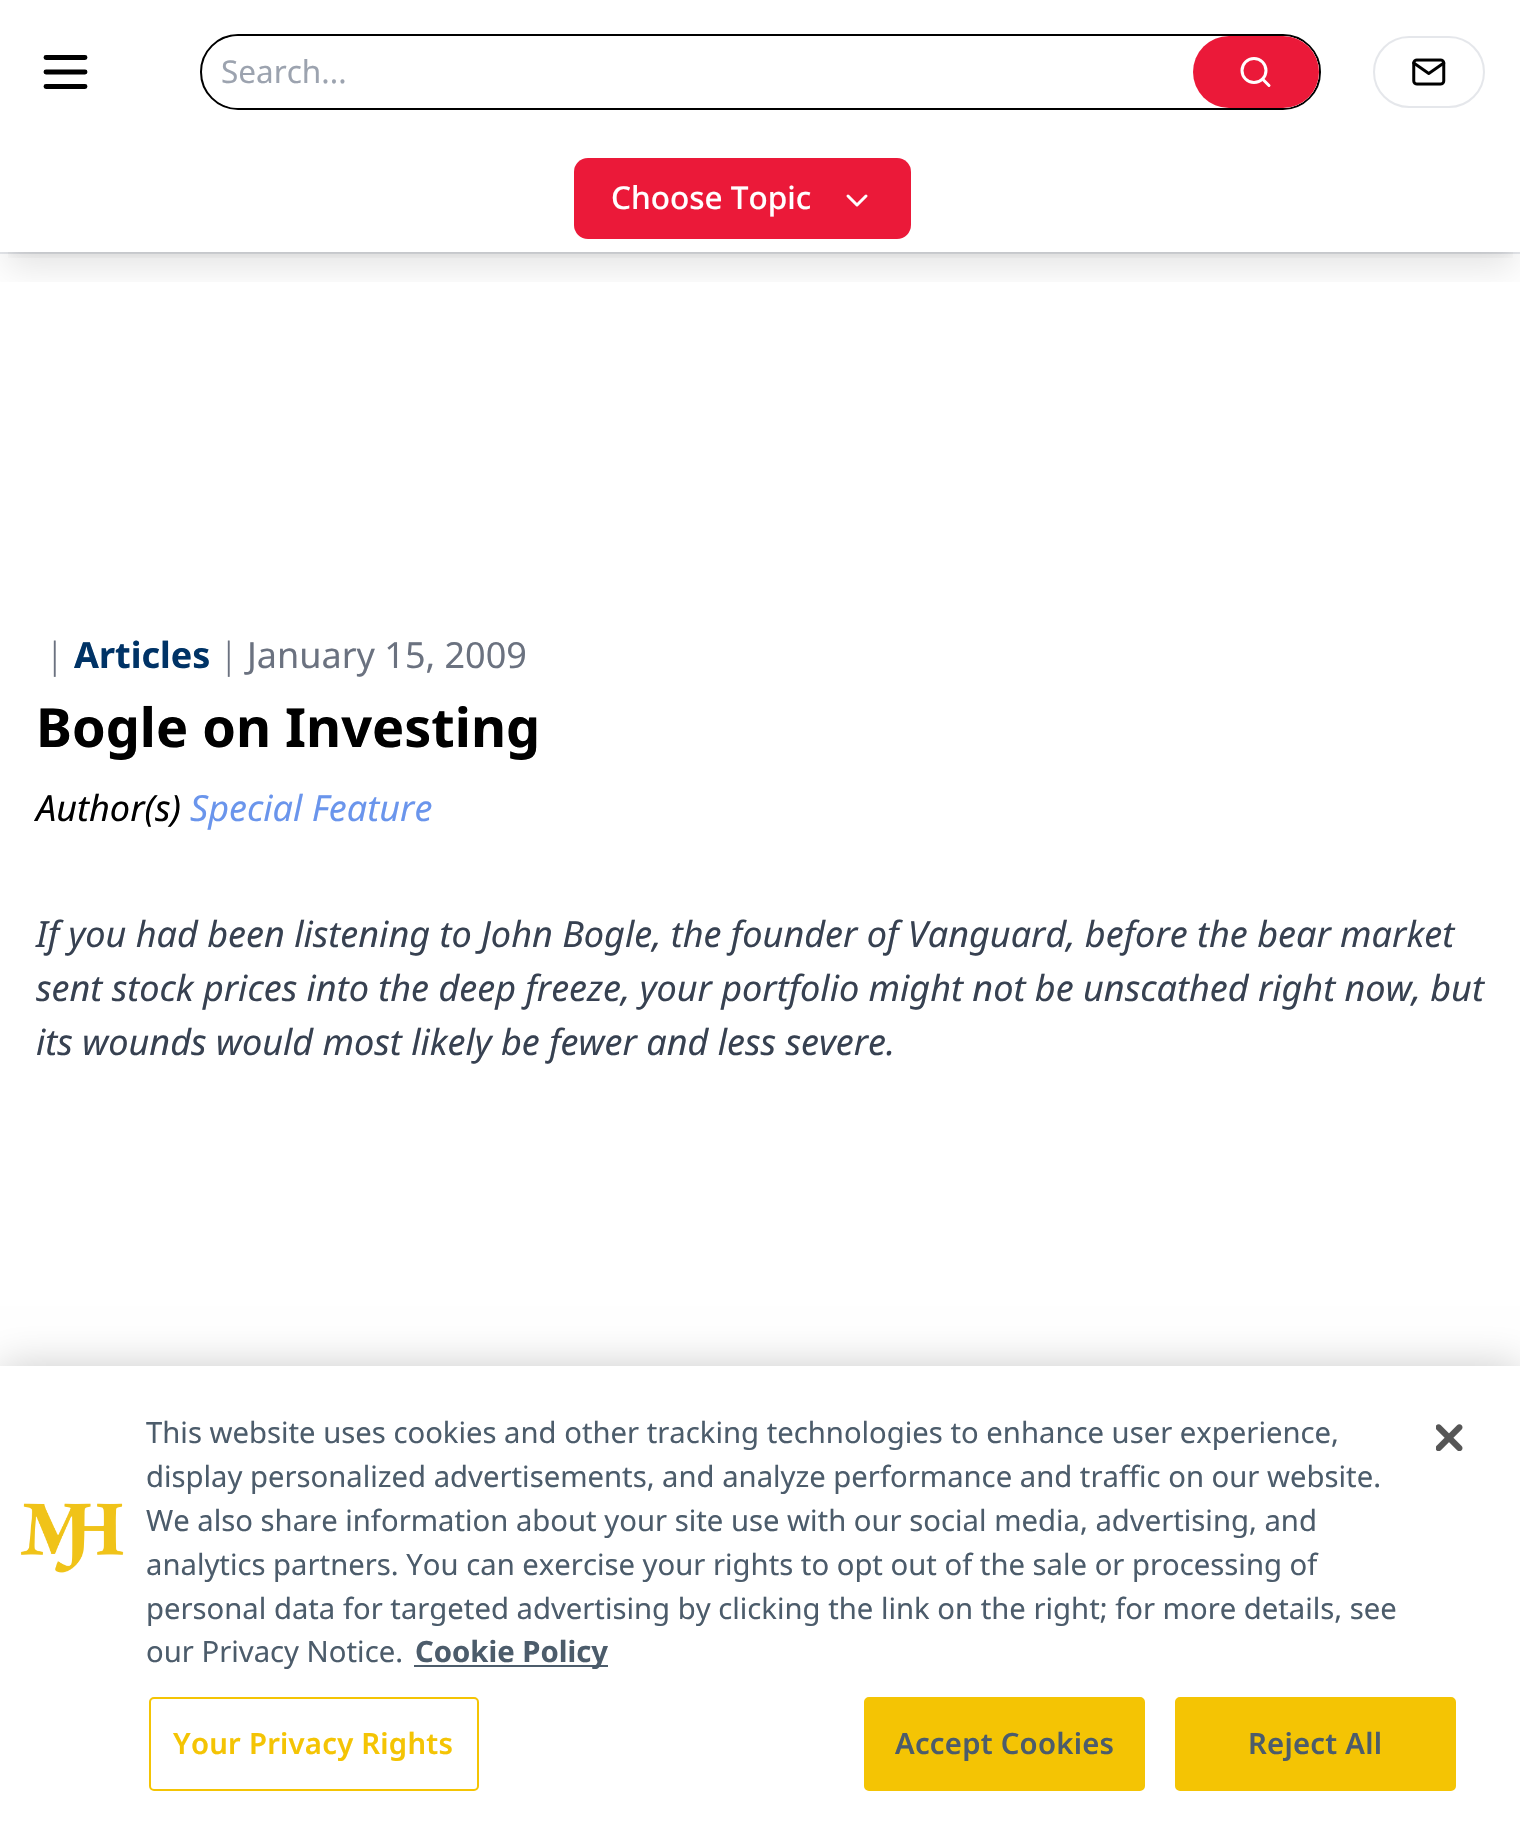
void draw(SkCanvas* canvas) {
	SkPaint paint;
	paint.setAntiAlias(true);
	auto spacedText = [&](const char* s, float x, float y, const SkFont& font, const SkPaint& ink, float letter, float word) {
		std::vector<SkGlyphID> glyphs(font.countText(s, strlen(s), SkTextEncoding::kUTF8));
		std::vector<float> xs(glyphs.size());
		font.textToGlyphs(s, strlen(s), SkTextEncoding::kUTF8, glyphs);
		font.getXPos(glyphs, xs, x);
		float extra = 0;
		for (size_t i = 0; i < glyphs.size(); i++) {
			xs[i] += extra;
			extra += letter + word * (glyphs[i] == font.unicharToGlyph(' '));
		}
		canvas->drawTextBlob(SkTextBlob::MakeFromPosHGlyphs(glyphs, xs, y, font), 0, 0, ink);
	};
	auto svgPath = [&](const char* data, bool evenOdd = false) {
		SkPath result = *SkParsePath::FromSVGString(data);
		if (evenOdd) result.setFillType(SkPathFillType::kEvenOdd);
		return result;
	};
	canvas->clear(0xffffffff);
	paint.setColor(0xffe5e7eb);
	canvas->drawRect(SkRect::MakeXYWH(0, 252, 1520, 2), paint);
	paint.setStroke(true);
	paint.setStrokeWidth(4.9);
	paint.setStrokeCap(SkPaint::kRound_Cap);
	paint.setStrokeJoin(SkPaint::kRound_Join);
	paint.setColor(0xff000000);
	canvas->drawPath(svgPath("M46 57.5H85M46 72H85M46 86.5H85"), paint);
	paint.setStrokeWidth(2);
	paint.setStrokeCap(SkPaint::kButt_Cap);
	paint.setStrokeJoin(SkPaint::kMiter_Join);
	canvas->drawRoundRect(SkRect::MakeXYWH(201, 35, 1119, 74), 37, 37, paint);
	paint.setStroke(false);
	paint.setColor(0xffffffff);
	canvas->drawRoundRect(SkRect::MakeXYWH(203, 36, 1116, 72), 36, 36, paint);
	SkFont f1(fontMgr->matchFamilyStyle("Noto Sans", SkFontStyle::Normal()), 31.5);
	f1.setSubpixel(true);
	paint.setColor(0xff9ca3af);
	canvas->drawString("Search...", 221, 83, f1, paint);
	paint.setColor(0xffeb1939);
	canvas->drawRoundRect(SkRect::MakeXYWH(1193, 36, 126, 72), 36, 36, paint);
	paint.setStroke(true);
	paint.setStrokeWidth(3);
	paint.setColor(0xffffffff);
	canvas->drawCircle(1254, 70.5, 12, paint);
	paint.setStrokeCap(SkPaint::kRound_Cap);
	paint.setStrokeJoin(SkPaint::kRound_Join);
	canvas->drawPath(svgPath("M1269 85.5L1262.5 79"), paint);
	paint.setStrokeWidth(2);
	paint.setStrokeCap(SkPaint::kButt_Cap);
	paint.setStrokeJoin(SkPaint::kMiter_Join);
	paint.setColor(0xffe5e7eb);
	canvas->drawRoundRect(SkRect::MakeXYWH(1374, 37, 110, 70), 35, 35, paint);
	canvas->drawImageRect(SkImages::DeferredFromEncodedData(SkData::MakeFromFileName("img1.png")), SkRect::MakeXYWH(1412, 58, 34, 28), SkSamplingOptions());
	canvas->save();
	canvas->clipRect(SkRect::MakeXYWH(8, 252, 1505, 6));
	paint.setStroke(false);
	paint.setColor(0x1a000000);
	paint.setMaskFilter(SkMaskFilter::MakeBlur(kNormal_SkBlurStyle, 7));
	canvas->drawRect(SkRect::MakeXYWH(9, 162, 1503, 90), paint);
	paint.setMaskFilter(nullptr);
	canvas->restore();
	canvas->save();
	canvas->clipRect(SkRect::MakeXYWH(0, 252, 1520, 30));
	paint.setMaskFilter(SkMaskFilter::MakeBlur(kNormal_SkBlurStyle, 17));
	canvas->drawRect(SkRect::MakeXYWH(7, 173, 1507, 95), paint);
	paint.setMaskFilter(nullptr);
	canvas->restore();
	paint.setColor(0xffeb1939);
	canvas->drawRoundRect(SkRect::MakeXYWH(574, 158, 337, 81), 14, 14, paint);
	SkFont f2(fontMgr->matchFamilyStyle("Noto Sans", SkFontStyle(500, SkFontStyle::kNormal_Width, SkFontStyle::kUpright_Slant)), 31.5);
	f2.setSubpixel(true);
	paint.setColor(0xffffffff);
	canvas->drawString("Choose Topic", 611, 209, f2, paint);
	paint.setStroke(true);
	paint.setStrokeWidth(3);
	paint.setStrokeCap(SkPaint::kRound_Cap);
	paint.setStrokeJoin(SkPaint::kRound_Join);
	canvas->drawPath(svgPath("M848 196L857 205L866 196"), paint);
	SkFont f3(fontMgr->matchFamilyStyle("Noto Sans", SkFontStyle(300, SkFontStyle::kNormal_Width, SkFontStyle::kUpright_Slant)), 36);
	f3.setSubpixel(true);
	paint.setStroke(false);
	paint.setColor(0xff6b7280);
	canvas->drawString("|", 45, 668, f3, paint);
	SkFont f4(fontMgr->matchFamilyStyle("Noto Sans", SkFontStyle::Bold()), 36);
	f4.setSubpixel(true);
	paint.setColor(0xff003366);
	canvas->drawString("Articles", 74, 668, f4, paint);
	paint.setColor(0xff6b7280);
	canvas->drawString("|", 219, 668, f3, paint);
	SkFont f5(fontMgr->matchFamilyStyle("Noto Sans", SkFontStyle::Normal()), 36);
	f5.setSubpixel(true);
	canvas->drawString("January 15, 2009", 247, 668, f5, paint);
	SkFont f6(fontMgr->matchFamilyStyle("Noto Sans", SkFontStyle::Bold()), 54);
	f6.setSubpixel(true);
	paint.setColor(0xff000000);
	canvas->drawString("Bogle on Investing", 36, 747, f6, paint);
	SkFont f7(fontMgr->matchFamilyStyle("Noto Sans", SkFontStyle::Italic()), 36);
	f7.setSubpixel(true);
	canvas->drawString("Author(s)", 36, 821, f7, paint);
	paint.setColor(0xff6a95ec);
	canvas->drawString("Special Feature", 190, 821, f7, paint);
	paint.setColor(0xff374151);
	canvas->drawString("If you had been listening to John Bogle, the founder of Vanguard, before the bear market", 36, 947, f7, paint);
	canvas->drawString("sent stock prices into the deep freeze, your portfolio might not be unscathed right now, but", 36, 1001, f7, paint);
	canvas->drawString("its wounds would most likely be fewer and less severe.", 36, 1055, f7, paint);
	paint.setColor(0x33000000);
	paint.setMaskFilter(SkMaskFilter::MakeBlur(kNormal_SkBlurStyle, 20));
	canvas->drawRect(SkRect::MakeXYWH(0, 1366, 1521, 472), paint);
	paint.setMaskFilter(nullptr);
	paint.setColor(0xffffffff);
	canvas->drawRect(SkRect::MakeXYWH(0, 1366, 1520, 472), paint);
	canvas->drawImageRect(SkImages::DeferredFromEncodedData(SkData::MakeFromFileName("img2.png")), SkRect::MakeXYWH(20, 1503, 104, 70), SkSamplingOptions());
	SkFont f8(fontMgr->matchFamilyStyle("Noto Sans", SkFontStyle::Normal()), 29.25);
	f8.setSubpixel(true);
	paint.setColor(0xff4c5c6b);
	canvas->drawString("This website uses cookies and other tracking technologies to enhance user experience,", 146, 1443, f8, paint);
	canvas->drawString("display personalized advertisements, and analyze performance and traffic on our website.", 146, 1487, f8, paint);
	canvas->drawString("We also share information about your site use with our social media, advertising, and", 146, 1531, f8, paint);
	canvas->drawString("analytics partners. You can exercise your rights to opt out of the sale or processing of", 146, 1575, f8, paint);
	canvas->drawString("personal data for targeted advertising by clicking the link on the right; for more details, see", 146, 1619, f8, paint);
	canvas->drawString("our Privacy Notice.", 146, 1662, f8, paint);
	canvas->drawRect(SkRect::MakeXYWH(414, 1665, 194, 2), paint);
	SkFont f9(fontMgr->matchFamilyStyle("Noto Sans", SkFontStyle::Bold()), 29.25);
	f9.setSubpixel(true);
	canvas->drawString("Cookie Policy", 415, 1662, f9, paint);
	paint.setStroke(true);
	paint.setStrokeWidth(2);
	paint.setStrokeCap(SkPaint::kButt_Cap);
	paint.setStrokeJoin(SkPaint::kMiter_Join);
	paint.setColor(0xfff4c404);
	canvas->drawRoundRect(SkRect::MakeXYWH(150, 1698, 328, 92), 4, 4, paint);
	SkFont f10(fontMgr->matchFamilyStyle("Noto Sans", SkFontStyle(600, SkFontStyle::kNormal_Width, SkFontStyle::kUpright_Slant)), 29.25);
	f10.setSubpixel(true);
	paint.setStroke(false);
	spacedText("Your Privacy Rights", 173, 1754, f10, paint, 0.25, 0);
	canvas->drawRoundRect(SkRect::MakeXYWH(865, 1698, 279, 92), 4, 4, paint);
	paint.setStroke(true);
	canvas->drawRoundRect(SkRect::MakeXYWH(865, 1698, 279, 92), 4, 4, paint);
	paint.setStroke(false);
	paint.setColor(0xff4c5c6b);
	spacedText("Accept Cookies", 895, 1754, f10, paint, 0.25, 0);
	paint.setColor(0xfff4c404);
	canvas->drawRoundRect(SkRect::MakeXYWH(1176, 1698, 279, 92), 4, 4, paint);
	paint.setStroke(true);
	canvas->drawRoundRect(SkRect::MakeXYWH(1176, 1698, 279, 92), 4, 4, paint);
	paint.setStroke(false);
	paint.setColor(0xff4c5c6b);
	spacedText("Reject All", 1248, 1754, f10, paint, 0.25, 0);
	canvas->drawImageRect(SkImages::DeferredFromEncodedData(SkData::MakeFromFileName("img3.png")), SkRect::MakeXYWH(1436, 1424, 27, 27), SkSamplingOptions());
}
